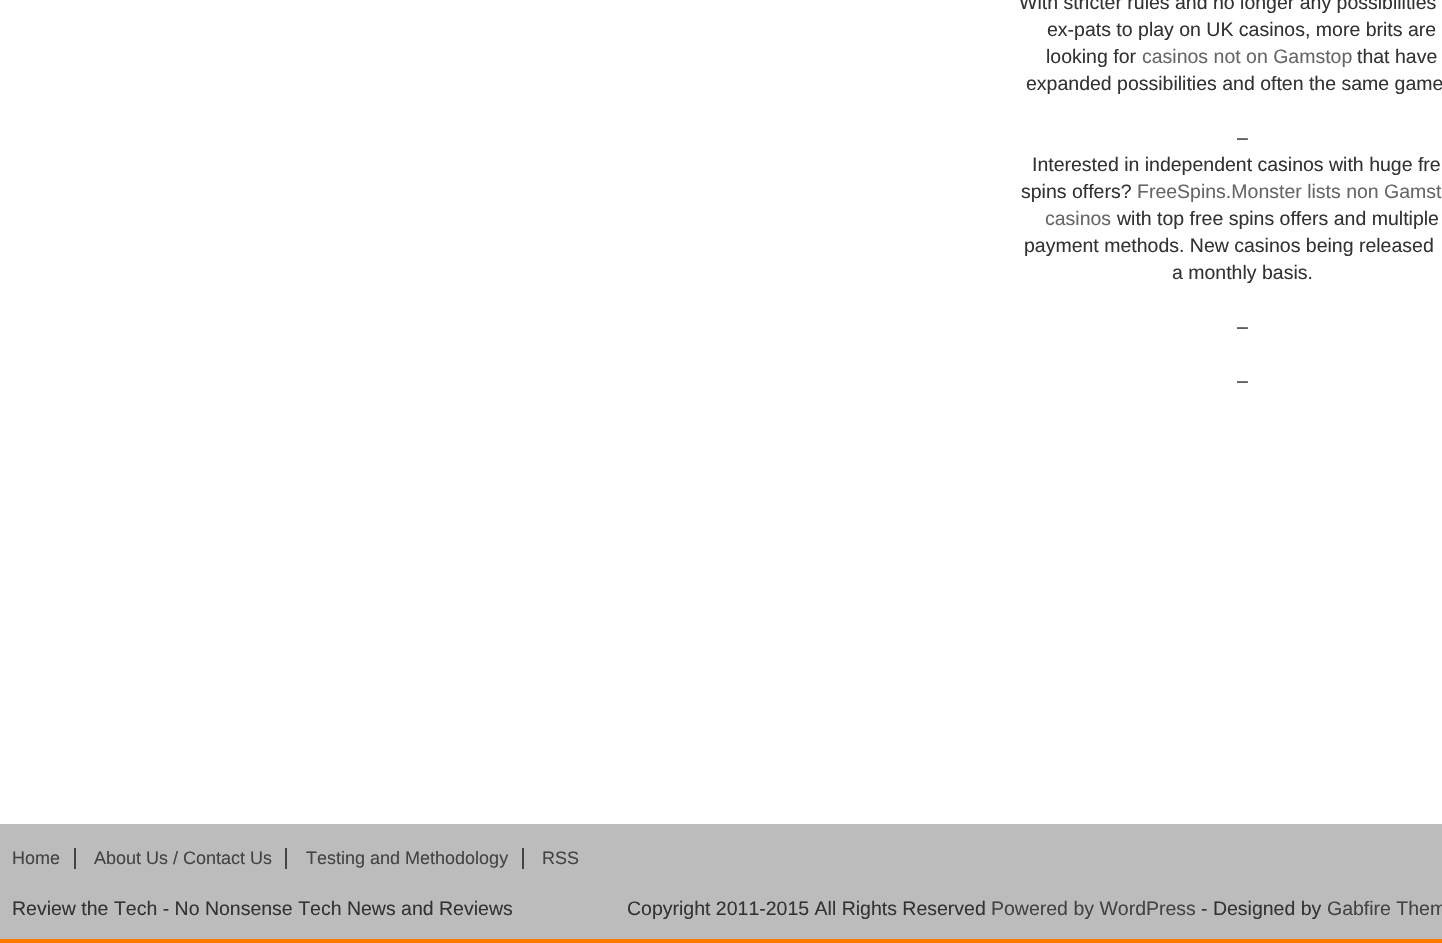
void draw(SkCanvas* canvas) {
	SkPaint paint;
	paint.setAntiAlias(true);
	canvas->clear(0xffffffff);
	SkFont f1(fontMgr->matchFamilyStyle("Liberation Sans", SkFontStyle::Normal()), 19.5);
	f1.setSubpixel(true);
	paint.setColor(0xff333333);
	canvas->drawString("With stricter rules and no longer any possibilities", 1019, 9, f1, paint);
	canvas->drawString("ex-pats to play on UK casinos, more brits are", 1047, 36, f1, paint);
	canvas->drawString("looking for", 1046, 63, f1, paint);
	paint.setColor(0xff666666);
	canvas->drawString("casinos not on Gamstop", 1142, 63, f1, paint);
	paint.setColor(0xff333333);
	canvas->drawString("that have", 1357, 63, f1, paint);
	canvas->drawString("expanded possibilities and often the same game", 1026, 90, f1, paint);
	canvas->drawString("–", 1237, 144, f1, paint);
	canvas->drawString("Interested in independent casinos with huge fre", 1032, 171, f1, paint);
	canvas->drawString("spins offers?", 1021, 198, f1, paint);
	paint.setColor(0xff666666);
	canvas->drawString("FreeSpins.Monster lists non Gamst", 1137, 198, f1, paint);
	canvas->drawString("casinos", 1045, 225, f1, paint);
	paint.setColor(0xff333333);
	canvas->drawString("with top free spins offers and multiple", 1117, 225, f1, paint);
	canvas->drawString("payment methods. New casinos being released", 1024, 252, f1, paint);
	canvas->drawString("a monthly basis.", 1172, 279, f1, paint);
	canvas->drawString("–", 1237, 333, f1, paint);
	canvas->drawString("–", 1237, 387, f1, paint);
	paint.setColor(0xffbcbcbc);
	canvas->drawRect(SkRect::MakeXYWH(0, 824, 1442, 115), paint);
	paint.setColor(0xffff7800);
	canvas->drawRect(SkRect::MakeXYWH(0, 939, 1442, 4), paint);
	SkFont f2(fontMgr->matchFamilyStyle("Liberation Sans", SkFontStyle::Normal()), 18);
	f2.setSubpixel(true);
	paint.setColor(0xff434343);
	canvas->drawString("Home", 12, 864, f2, paint);
	canvas->drawRect(SkRect::MakeXYWH(74, 848, 2, 21), paint);
	canvas->drawString("About Us / Contact Us", 94, 864, f2, paint);
	canvas->drawRect(SkRect::MakeXYWH(285, 848, 2, 21), paint);
	canvas->drawString("Testing and Methodology", 306, 864, f2, paint);
	canvas->drawRect(SkRect::MakeXYWH(522, 848, 2, 21), paint);
	canvas->drawString("RSS", 542, 864, f2, paint);
	paint.setColor(0xff333333);
	canvas->drawString("Review the Tech - No Nonsense Tech News and Reviews", 12, 915, f1, paint);
	canvas->drawString("Copyright 2011-2015 All Rights Reserved", 627, 915, f1, paint);
	paint.setColor(0xff434343);
	canvas->drawString("Powered by WordPress", 991, 915, f1, paint);
	paint.setColor(0xff333333);
	canvas->drawString("- Designed by", 1201, 915, f1, paint);
	paint.setColor(0xff434343);
	canvas->drawString("Gabfire Them", 1327, 915, f1, paint);
}
